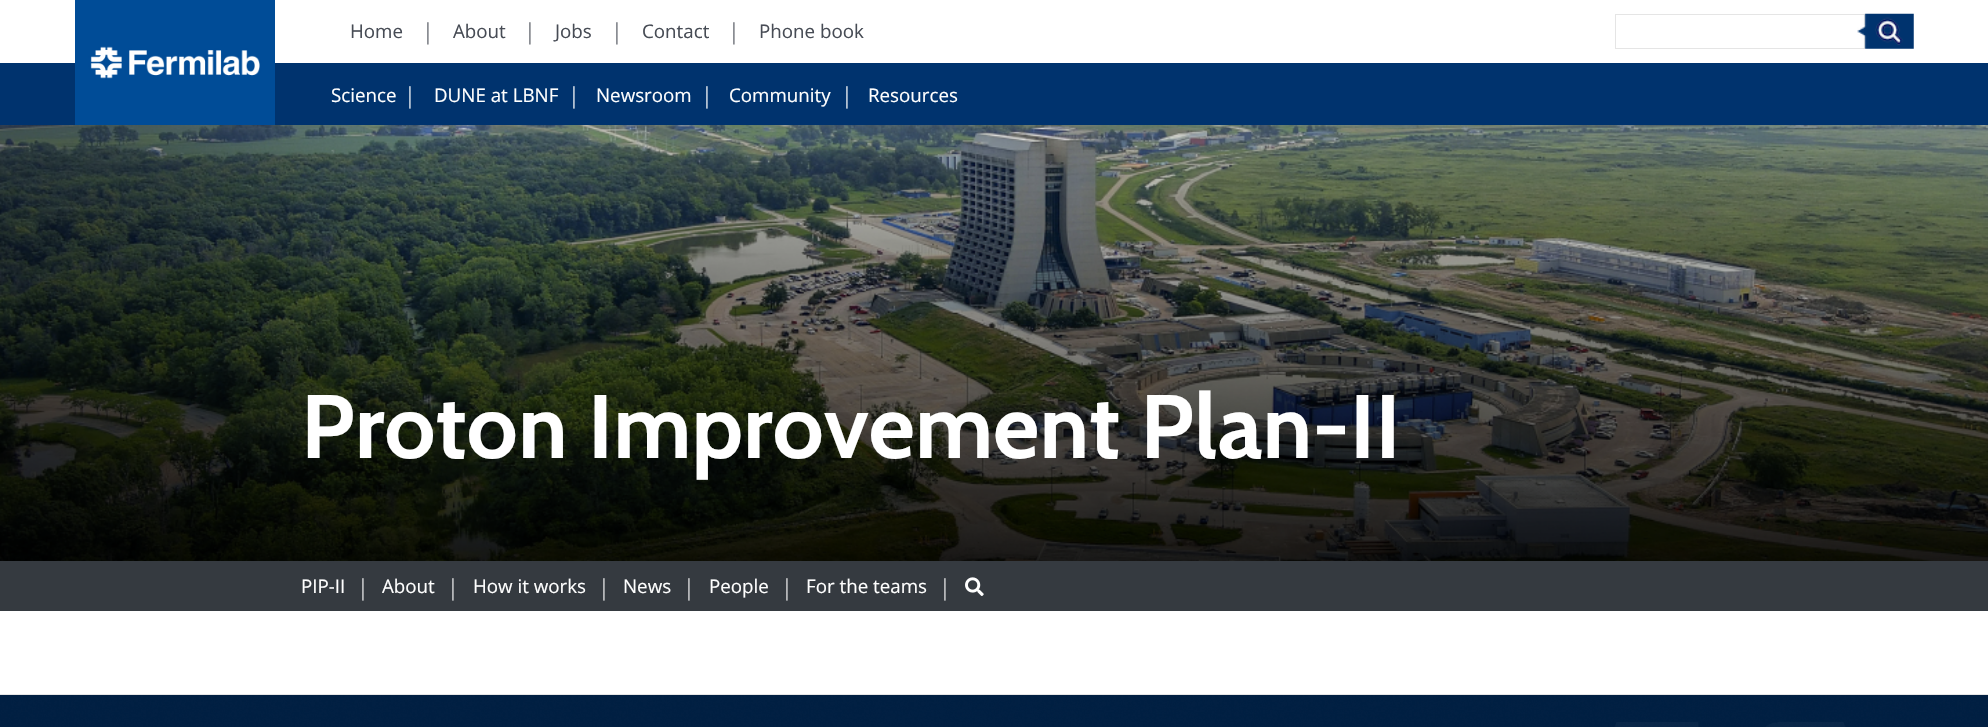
void draw(SkCanvas* canvas) {
	SkPaint paint;
	paint.setAntiAlias(true);
	canvas->clear(0xffffffff);
	paint.setColor(0xff00336e);
	canvas->drawRect(SkRect::MakeXYWH(0, 63, 1988, 62), paint);
	canvas->drawImageRect(SkImages::DeferredFromEncodedData(SkData::MakeFromFileName("img1.png")), SkRect::MakeXYWH(75, 0, 200, 125), SkSamplingOptions());
	SkFont f1(fontMgr->matchFamilyStyle("Open Sans", SkFontStyle::Normal()), 18.75);
	f1.setSubpixel(true);
	paint.setColor(0xff474c55);
	canvas->drawString("Home", 350, 38, f1, paint);
	SkFont f2(fontMgr->matchFamilyStyle("Open Sans", SkFontStyle(300, SkFontStyle::kNormal_Width, SkFontStyle::kUpright_Slant)), 22);
	f2.setSubpixel(true);
	canvas->drawString("|", 422, 39, f2, paint);
	canvas->drawString("About", 453, 38, f1, paint);
	canvas->drawString("|", 524, 39, f2, paint);
	canvas->drawString("Jobs", 555, 38, f1, paint);
	canvas->drawString("|", 611, 39, f2, paint);
	canvas->drawString("Contact", 642, 38, f1, paint);
	canvas->drawString("|", 728, 39, f2, paint);
	canvas->drawString("Phone book", 759, 38, f1, paint);
	paint.setStroke(true);
	paint.setStrokeWidth(1);
	paint.setColor(0xffe5e5e5);
	canvas->drawRect(SkRect::MakeXYWH(1615.5, 14.5, 249, 34), paint);
	canvas->drawImageRect(SkImages::DeferredFromEncodedData(SkData::MakeFromFileName("img2.png")), SkRect::MakeXYWH(1857, 13, 57, 36), SkSamplingOptions());
	paint.setStroke(false);
	paint.setColor(0xffffffff);
	canvas->drawString("Science", 331, 102, f1, paint);
	canvas->drawString("|", 404, 103, f2, paint);
	canvas->drawString("DUNE at LBNF", 434, 102, f1, paint);
	canvas->drawString("|", 568, 103, f2, paint);
	canvas->drawString("Newsroom", 596, 102, f1, paint);
	canvas->drawString("|", 701, 103, f2, paint);
	canvas->drawString("Community", 729, 102, f1, paint);
	canvas->drawString("|", 841, 103, f2, paint);
	canvas->drawString("Resources", 868, 102, f1, paint);
	canvas->drawImageRect(SkImages::DeferredFromEncodedData(SkData::MakeFromFileName("img3.png")), SkRect::MakeXYWH(0, 125, 1988, 436), SkSamplingOptions());
	SkFont f3(fontMgr->matchFamilyStyle("Cabin", SkFontStyle::Bold()), 90);
	f3.setSubpixel(true);
	canvas->drawString("Proton Improvement Plan-II", 301, 458, f3, paint);
	paint.setColor(0xff353a40);
	canvas->drawRect(SkRect::MakeXYWH(0, 561, 1988, 50), paint);
	paint.setColor(0xffffffff);
	canvas->drawString("PIP-II", 301, 593, f1, paint);
	paint.setColor(0xffededee);
	canvas->drawString("|", 357, 595, f2, paint);
	paint.setColor(0xffffffff);
	canvas->drawString("About", 382, 593, f1, paint);
	paint.setColor(0xffededee);
	canvas->drawString("|", 447, 595, f2, paint);
	paint.setColor(0xffffffff);
	canvas->drawString("How it works", 473, 593, f1, paint);
	paint.setColor(0xffededee);
	canvas->drawString("|", 598, 595, f2, paint);
	paint.setColor(0xffffffff);
	canvas->drawString("News", 623, 593, f1, paint);
	paint.setColor(0xffededee);
	canvas->drawString("|", 683, 595, f2, paint);
	paint.setColor(0xffffffff);
	canvas->drawString("People", 709, 593, f1, paint);
	paint.setColor(0xffededee);
	canvas->drawString("|", 781, 595, f2, paint);
	paint.setColor(0xffffffff);
	canvas->drawString("For the teams", 806, 593, f1, paint);
	paint.setColor(0xffededee);
	canvas->drawString("|", 939, 595, f2, paint);
	canvas->drawImageRect(SkImages::DeferredFromEncodedData(SkData::MakeFromFileName("img4.png")), SkRect::MakeXYWH(965, 577, 19, 19), SkSamplingOptions());
	canvas->drawImageRect(SkImages::DeferredFromEncodedData(SkData::MakeFromFileName("img5.png")), SkRect::MakeXYWH(0, 695, 1988, 32), SkSamplingOptions());
	paint.setColor(0xffe6e6e6);
	canvas->drawRect(SkRect::MakeXYWH(0, 694, 1988, 1), paint);
}
